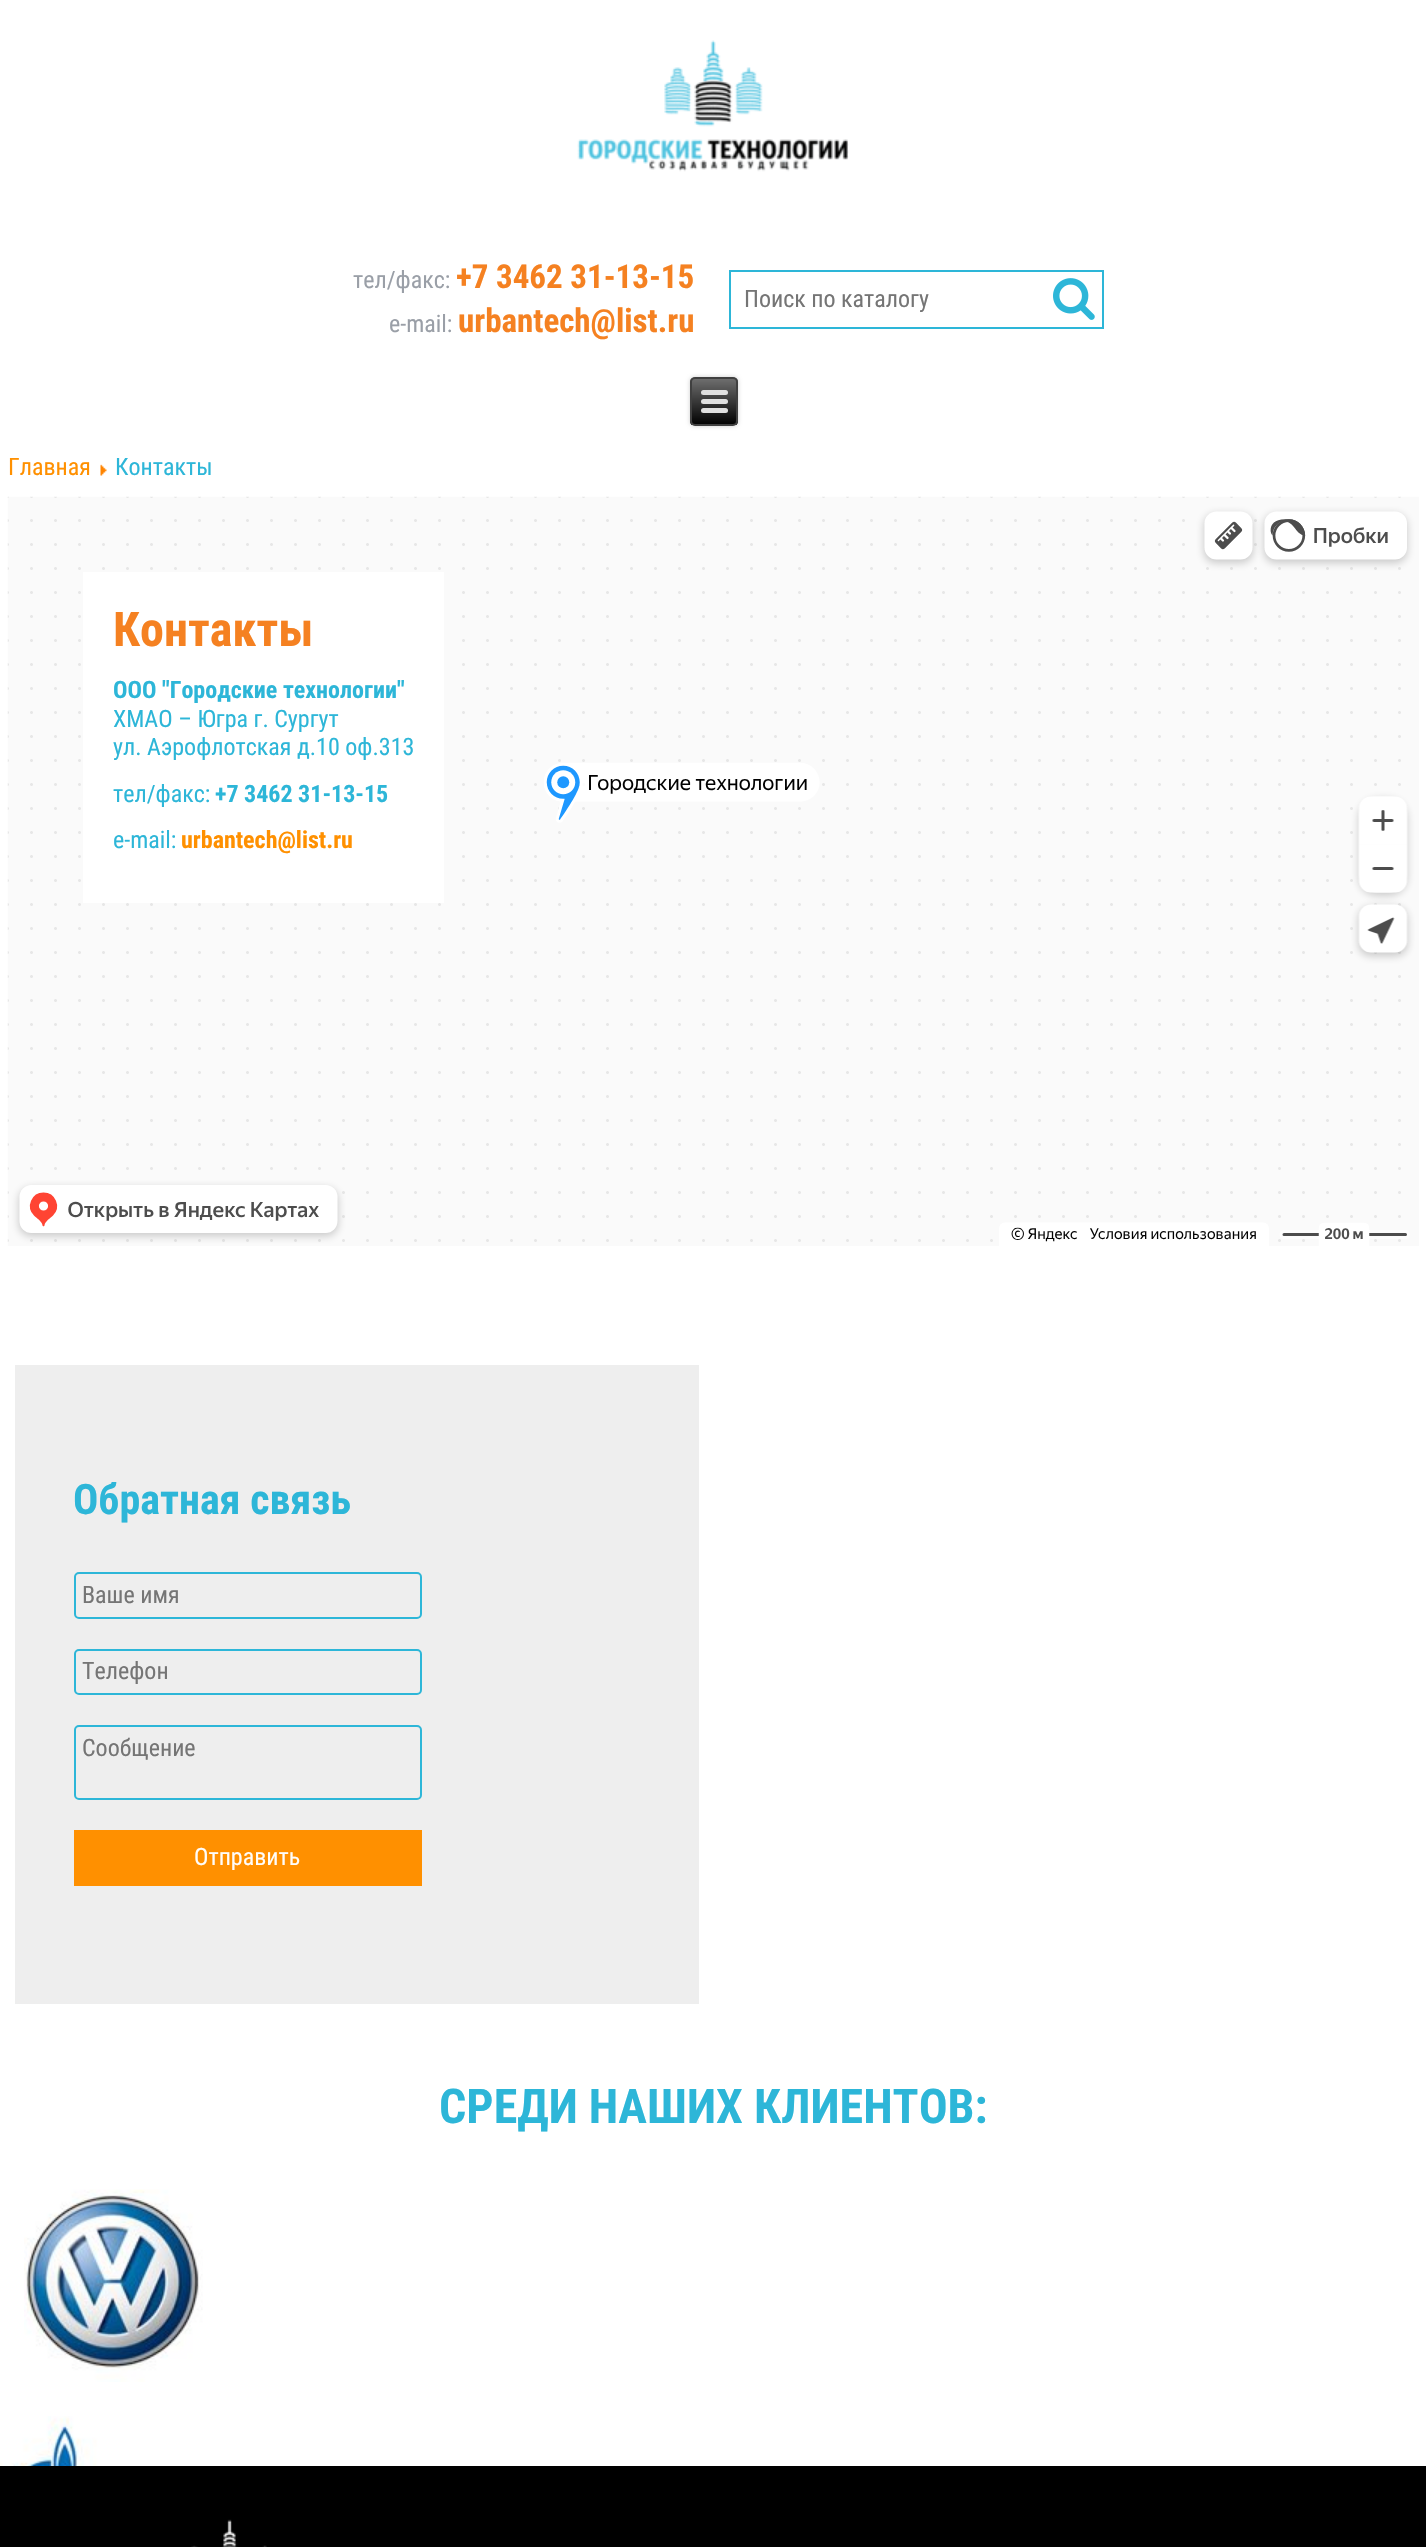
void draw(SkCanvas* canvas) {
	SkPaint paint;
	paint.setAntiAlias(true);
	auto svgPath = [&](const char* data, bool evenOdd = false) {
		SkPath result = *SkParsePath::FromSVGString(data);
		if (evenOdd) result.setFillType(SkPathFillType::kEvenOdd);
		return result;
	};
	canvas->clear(0xffffffff);
	canvas->drawImageRect(SkImages::DeferredFromEncodedData(SkData::MakeFromFileName("img1.png")), SkRect::MakeXYWH(577, 40, 272, 132), SkSamplingOptions());
	SkFont f1(fontMgr->matchFamilyStyle("Roboto Condensed", SkFontStyle::Normal()), 24);
	f1.setSubpixel(true);
	paint.setColor(0xff9a9fa7);
	canvas->drawString("тел/факс:", 353, 288, f1, paint);
	SkFont f2(fontMgr->matchFamilyStyle("Roboto Condensed", SkFontStyle::Bold()), 33);
	f2.setSubpixel(true);
	paint.setColor(0xfff58121);
	canvas->drawString("+7 3462 31-13-15", 456, 288, f2, paint);
	paint.setColor(0xff9a9fa7);
	canvas->drawString("e-mail:", 389, 332, f1, paint);
	paint.setColor(0xfff58121);
	canvas->drawString("urbantech@list.ru", 458, 332, f2, paint);
	paint.setStroke(true);
	paint.setStrokeWidth(2);
	paint.setColor(0xff2db6d8);
	canvas->drawRect(SkRect::MakeXYWH(730, 271, 373, 57), paint);
	paint.setStroke(false);
	paint.setColor(0xff757575);
	canvas->drawString("Поиск по каталогу", 744, 307, f1, paint);
	canvas->drawImageRect(SkImages::DeferredFromEncodedData(SkData::MakeFromFileName("img2.png")), SkRect::MakeXYWH(1053, 278, 42, 42), SkSamplingOptions());
	paint.setColor(0x33000000);
	paint.setMaskFilter(SkMaskFilter::MakeBlur(kNormal_SkBlurStyle, 2));
	canvas->drawRoundRect(SkRect::MakeXYWH(690, 377, 48, 49), 5, 5, paint);
	paint.setMaskFilter(nullptr);
	canvas->save();
	canvas->clipPath(svgPath("M695 377H733C736 377 738 379 738 382V421C738 424 736 426 733 426H695C692 426 690 424 690 421V382C690 379 692 377 695 377Z"), true);
	{
		const SkColor colors[] = {0xff707070, 0xff000000};
		const float stops[] = {0, 1};
		const SkPoint ends[] = {{714, 378}, {714, 425}};
		paint.setShader(SkGradientShader::MakeLinear(ends, colors, stops, 2, SkTileMode::kClamp));
		paint.setAlpha(255);
	}
	canvas->drawRect(SkRect::MakeXYWH(690, 378, 48, 47), paint);
	canvas->restore();
	paint.setStroke(true);
	paint.setShader(nullptr);
	paint.setColor(0xff404040);
	canvas->drawRoundRect(SkRect::MakeXYWH(691, 378, 46, 47), 4, 4, paint);
	paint.setStroke(false);
	paint.setColor(0xffe0e0e0);
	canvas->drawRoundRect(SkRect::MakeXYWH(701, 390, 27, 5), 2.5, 2.5, paint);
	canvas->drawRoundRect(SkRect::MakeXYWH(701, 399, 27, 5), 2.5, 2.5, paint);
	canvas->drawRoundRect(SkRect::MakeXYWH(701, 408, 27, 5), 2.5, 2.5, paint);
	paint.setColor(0xffff9000);
	canvas->drawString("Главная", 8, 475, f1, paint);
	canvas->drawImageRect(SkImages::DeferredFromEncodedData(SkData::MakeFromFileName("img3.png")), SkRect::MakeXYWH(100, 464, 7, 12), SkSamplingOptions());
	paint.setColor(0xff2db6d8);
	canvas->drawString("Контакты", 115, 475, f1, paint);
	canvas->drawImageRect(SkImages::DeferredFromEncodedData(SkData::MakeFromFileName("img4.png")), SkRect::MakeXYWH(7, 496, 1412, 750), SkSamplingOptions());
	paint.setColor(0xffffffff);
	canvas->drawRect(SkRect::MakeXYWH(83, 572, 361, 331), paint);
	SkFont f3(fontMgr->matchFamilyStyle("Roboto Condensed", SkFontStyle::Bold()), 48);
	f3.setSubpixel(true);
	paint.setColor(0xfff58121);
	canvas->drawString("Контакты", 113, 646, f3, paint);
	SkFont f4(fontMgr->matchFamilyStyle("Roboto Condensed", SkFontStyle::Bold()), 24);
	f4.setSubpixel(true);
	paint.setColor(0xff2db6d8);
	canvas->drawString("ООО \"Городские технологии\"", 113, 698, f4, paint);
	canvas->drawString("ХМАО – Югра г. Сургут", 113, 727, f1, paint);
	canvas->drawString("ул. Аэрофлотская д.10 оф.313", 113, 755, f1, paint);
	canvas->drawString("тел/факс:", 113, 802, f1, paint);
	canvas->drawString("+7 3462 31-13-15", 215, 802, f4, paint);
	canvas->drawString("e-mail:", 113, 848, f1, paint);
	paint.setColor(0xffff9000);
	canvas->drawString("urbantech@list.ru", 181, 848, f4, paint);
	paint.setColor(0xffeeeeee);
	canvas->drawRect(SkRect::MakeXYWH(15, 1365, 684, 639), paint);
	SkFont f5(fontMgr->matchFamilyStyle("Roboto Condensed", SkFontStyle::Bold()), 42);
	f5.setSubpixel(true);
	paint.setColor(0xff2db6d8);
	canvas->drawString("Обратная связь", 73, 1514, f5, paint);
	paint.setStroke(true);
	canvas->drawRoundRect(SkRect::MakeXYWH(75, 1573, 346, 45), 4, 4, paint);
	paint.setStroke(false);
	paint.setColor(0xff757575);
	canvas->drawString("Ваше имя", 82, 1603, f1, paint);
	paint.setStroke(true);
	paint.setColor(0xff2db6d8);
	canvas->drawRoundRect(SkRect::MakeXYWH(75, 1650, 346, 44), 4, 4, paint);
	paint.setStroke(false);
	paint.setColor(0xff757575);
	canvas->drawString("Телефон", 82, 1679, f1, paint);
	paint.setStroke(true);
	paint.setColor(0xff2db6d8);
	canvas->drawRoundRect(SkRect::MakeXYWH(75, 1726, 346, 73), 4, 4, paint);
	paint.setStroke(false);
	paint.setColor(0xff757575);
	canvas->drawString("Сообщение", 82, 1756, f1, paint);
	paint.setColor(0xffff9000);
	canvas->drawRect(SkRect::MakeXYWH(74, 1830, 348, 56), paint);
	paint.setColor(0xfffffdfa);
	canvas->drawString("Отправить", 194, 1865, f1, paint);
	paint.setColor(0xff2db6d8);
	canvas->drawString("СРЕДИ НАШИХ КЛИЕНТОВ:", 439, 2123, f3, paint);
	canvas->drawImageRect(SkImages::DeferredFromEncodedData(SkData::MakeFromFileName("img5.png")), SkRect::MakeXYWH(24, 2189, 179, 193), SkSamplingOptions());
	canvas->drawImageRect(SkImages::DeferredFromEncodedData(SkData::MakeFromFileName("img6.png")), SkRect::MakeXYWH(0, 2416, 217, 50), SkSamplingOptions());
	paint.setColor(0xff000000);
	canvas->drawRect(SkRect::MakeXYWH(0, 2466, 1426, 81), paint);
	canvas->drawImageRect(SkImages::DeferredFromEncodedData(SkData::MakeFromFileName("img7.png")), SkRect::MakeXYWH(191, 2519, 76, 28), SkSamplingOptions());
}
